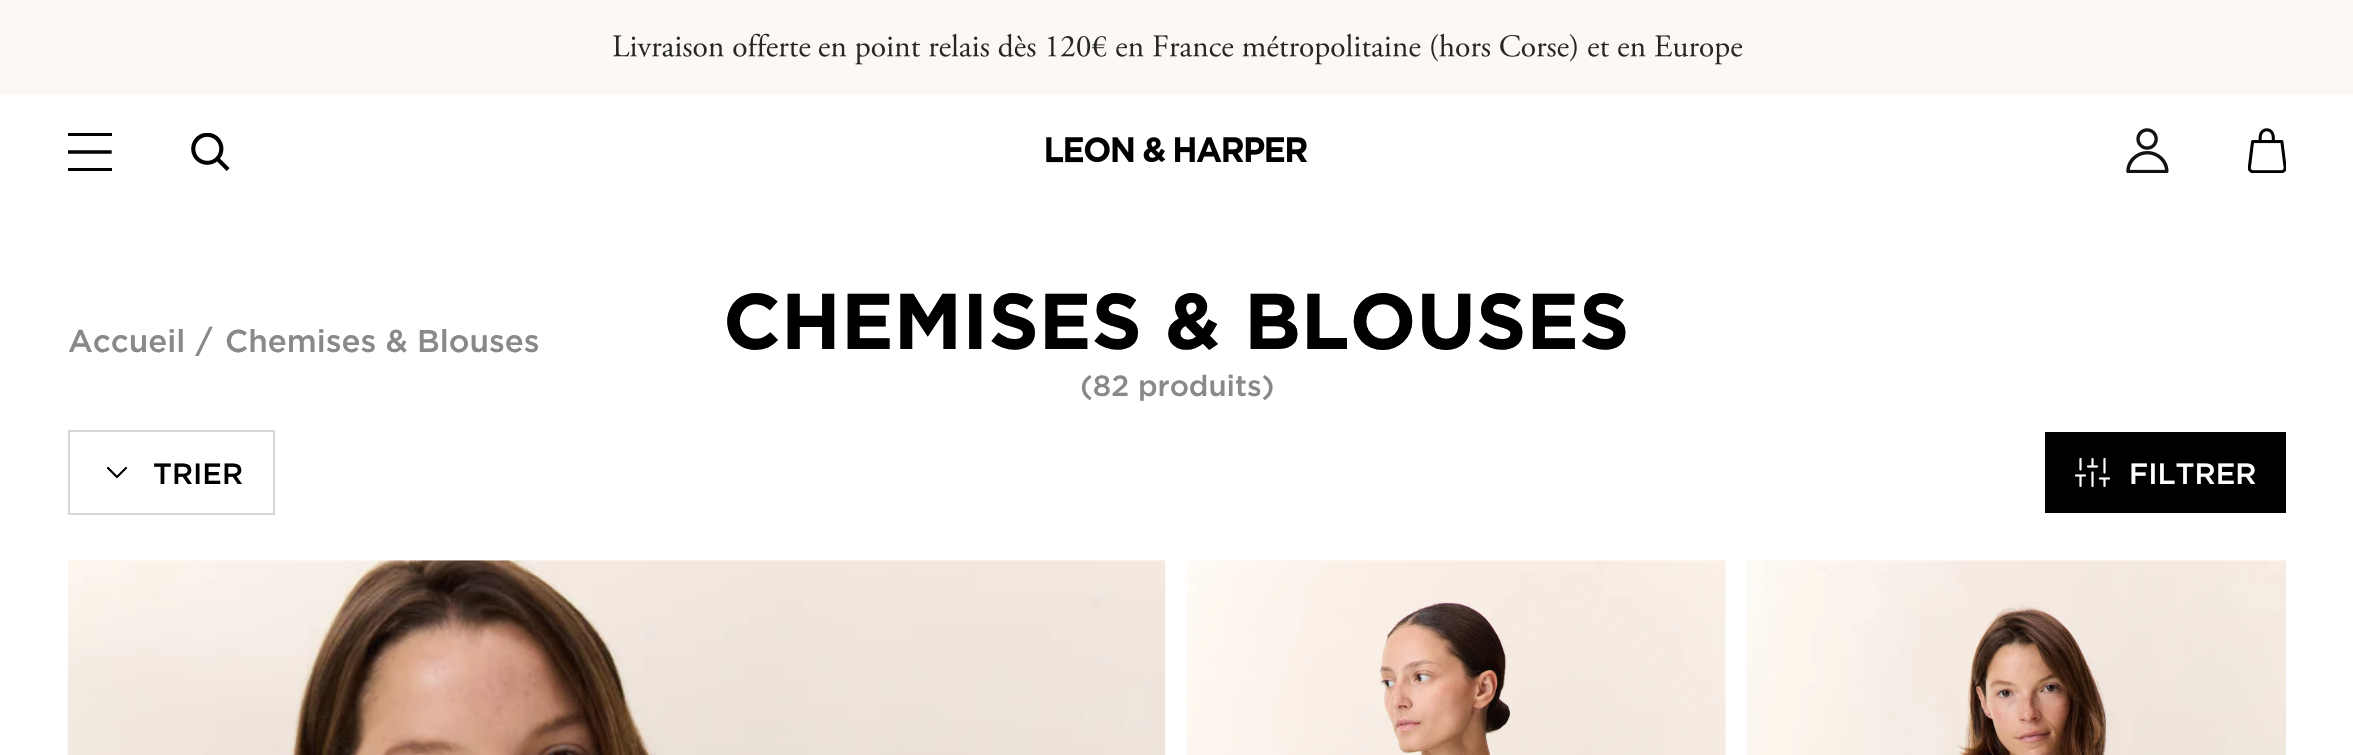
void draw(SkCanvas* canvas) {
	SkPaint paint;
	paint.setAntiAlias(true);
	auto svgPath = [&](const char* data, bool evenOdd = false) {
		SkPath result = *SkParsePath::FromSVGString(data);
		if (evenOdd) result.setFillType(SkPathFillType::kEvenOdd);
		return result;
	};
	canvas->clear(0xffffffff);
	paint.setColor(0xfffcf8f4);
	canvas->drawRect(SkRect::MakeXYWH(0, 0, 2353, 95), paint);
	canvas->drawImageRect(SkImages::DeferredFromEncodedData(SkData::MakeFromFileName("img1.png")), SkRect::MakeXYWH(613, 33, 198, 24), SkSamplingOptions());
	canvas->drawImageRect(SkImages::DeferredFromEncodedData(SkData::MakeFromFileName("img2.png")), SkRect::MakeXYWH(819, 33, 924, 32), SkSamplingOptions());
	paint.setColor(0xff000000);
	canvas->drawRect(SkRect::MakeXYWH(68, 133, 44, 3), paint);
	canvas->save();
	canvas->clipRect(SkRect::MakeXYWH(68, 133, 45, 38));
	paint.setStroke(true);
	paint.setStrokeWidth(3.3);
	paint.setStrokeCap(SkPaint::kSquare_Cap);
	canvas->drawPath(svgPath("M69 152H110"), paint);
	canvas->restore();
	paint.setStroke(false);
	canvas->drawRect(SkRect::MakeXYWH(68, 168, 44, 3), paint);
	canvas->drawImageRect(SkImages::DeferredFromEncodedData(SkData::MakeFromFileName("img3.png")), SkRect::MakeXYWH(191, 133, 39, 38), SkSamplingOptions());
	canvas->drawImageRect(SkImages::DeferredFromEncodedData(SkData::MakeFromFileName("img4.png")), SkRect::MakeXYWH(1046, 137, 261, 26), SkSamplingOptions());
	canvas->drawImageRect(SkImages::DeferredFromEncodedData(SkData::MakeFromFileName("img5.png")), SkRect::MakeXYWH(2126, 128, 43, 45), SkSamplingOptions());
	canvas->drawImageRect(SkImages::DeferredFromEncodedData(SkData::MakeFromFileName("img6.png")), SkRect::MakeXYWH(2248, 128, 38, 45), SkSamplingOptions());
	SkFont f1(fontMgr->matchFamilyStyle("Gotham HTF", SkFontStyle(500, SkFontStyle::kNormal_Width, SkFontStyle::kUpright_Slant)), 31.5);
	f1.setSubpixel(true);
	paint.setColor(0xff898989);
	canvas->drawString("Accueil", 68, 352, f1, paint);
	canvas->drawString("/", 196, 352, f1, paint);
	canvas->drawString("Chemises & Blouses", 225, 352, f1, paint);
	SkFont f2(fontMgr->matchFamilyStyle("Gotham HTF", SkFontStyle::Bold()), 78.75);
	f2.setSubpixel(true);
	paint.setColor(0xff000000);
	canvas->drawString("CHEMISES & BLOUSES", 723, 349, f2, paint);
	SkFont f3(fontMgr->matchFamilyStyle("Gotham HTF", SkFontStyle(500, SkFontStyle::kNormal_Width, SkFontStyle::kUpright_Slant)), 29.25);
	f3.setSubpixel(true);
	paint.setColor(0xff898989);
	canvas->drawString("(82 produits)", 1080, 396, f3, paint);
	paint.setStroke(true);
	paint.setStrokeWidth(2);
	paint.setStrokeCap(SkPaint::kButt_Cap);
	paint.setColor(0xffd6d6d6);
	canvas->drawRect(SkRect::MakeXYWH(69, 431, 205, 83), paint);
	paint.setStrokeWidth(2.2);
	paint.setStrokeCap(SkPaint::kRound_Cap);
	paint.setStrokeJoin(SkPaint::kRound_Join);
	paint.setColor(0xff000000);
	canvas->drawPath(svgPath("M108 468L117 477L126 468"), paint);
	paint.setStroke(false);
	canvas->drawString("TRIER", 153, 484, f3, paint);
	canvas->drawRect(SkRect::MakeXYWH(2045, 432, 241, 81), paint);
	canvas->drawImageRect(SkImages::DeferredFromEncodedData(SkData::MakeFromFileName("img7.png")), SkRect::MakeXYWH(2075, 457, 36, 31), SkSamplingOptions());
	paint.setColor(0xffffffff);
	canvas->drawString("FILTRER", 2129, 484, f3, paint);
	canvas->drawImageRect(SkImages::DeferredFromEncodedData(SkData::MakeFromFileName("img8.png")), SkRect::MakeXYWH(67, 560, 1099, 195), SkSamplingOptions());
	canvas->drawImageRect(SkImages::DeferredFromEncodedData(SkData::MakeFromFileName("img9.png")), SkRect::MakeXYWH(1186, 560, 540, 195), SkSamplingOptions());
	canvas->drawImageRect(SkImages::DeferredFromEncodedData(SkData::MakeFromFileName("img10.png")), SkRect::MakeXYWH(1746, 560, 540, 195), SkSamplingOptions());
}
